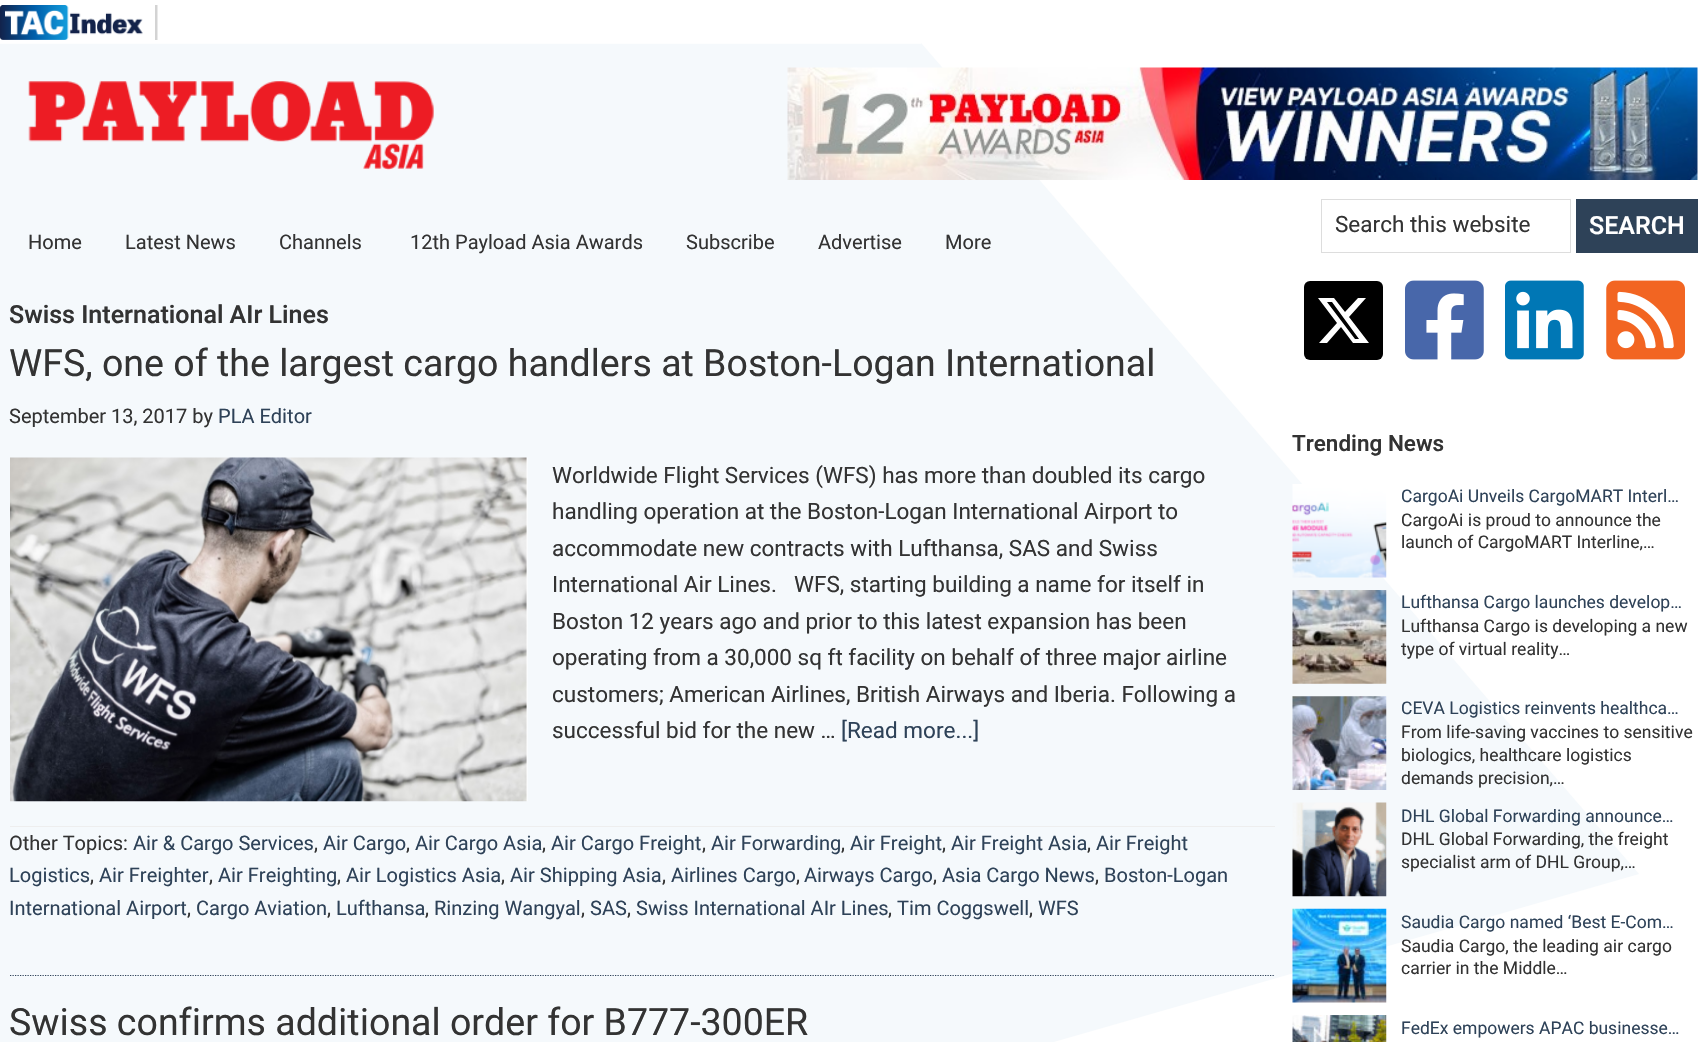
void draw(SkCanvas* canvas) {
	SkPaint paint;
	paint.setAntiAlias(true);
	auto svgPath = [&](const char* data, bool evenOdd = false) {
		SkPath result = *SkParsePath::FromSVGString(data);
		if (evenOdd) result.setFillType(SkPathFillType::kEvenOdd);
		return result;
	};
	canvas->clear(0xffffffff);
	paint.setColor(0xfff5f9fc);
	canvas->drawPath(svgPath("M1639 874L-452 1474L198-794Z"), paint);
	canvas->drawImageRect(SkImages::DeferredFromEncodedData(SkData::MakeFromFileName("img1.png")), SkRect::MakeXYWH(0, 0, 921, 44), SkSamplingOptions());
	canvas->drawImageRect(SkImages::DeferredFromEncodedData(SkData::MakeFromFileName("img2.png")), SkRect::MakeXYWH(28, 81, 406, 89), SkSamplingOptions());
	canvas->drawImageRect(SkImages::DeferredFromEncodedData(SkData::MakeFromFileName("img3.png")), SkRect::MakeXYWH(787, 67, 911, 113), SkSamplingOptions());
	paint.setStroke(true);
	paint.setStrokeWidth(1);
	paint.setColor(0xffdddddd);
	canvas->drawRect(SkRect::MakeXYWH(1321.5, 199.5, 249, 53), paint);
	SkFont f1(fontMgr->matchFamilyStyle("Heebo", SkFontStyle::Normal()), 22.5);
	f1.setSubpixel(true);
	paint.setStroke(false);
	paint.setColor(0xff333333);
	canvas->drawString("Search this website", 1335, 232, f1, paint);
	paint.setColor(0xff2e4258);
	canvas->drawRect(SkRect::MakeXYWH(1576, 199, 122, 54), paint);
	SkFont f2(fontMgr->matchFamilyStyle("Heebo", SkFontStyle(600, SkFontStyle::kNormal_Width, SkFontStyle::kUpright_Slant)), 25);
	f2.setSubpixel(true);
	paint.setColor(0xffffffff);
	canvas->drawString("SEARCH", 1589, 234, f2, paint);
	SkFont f3(fontMgr->matchFamilyStyle("Heebo", SkFontStyle::Normal()), 20);
	f3.setSubpixel(true);
	paint.setColor(0xff333333);
	canvas->drawString("Home", 28, 249, f3, paint);
	canvas->drawString("Latest News", 125, 249, f3, paint);
	canvas->drawString("Channels", 279, 249, f3, paint);
	canvas->drawString("12th Payload Asia Awards", 410, 249, f3, paint);
	canvas->drawString("Subscribe", 686, 249, f3, paint);
	canvas->drawString("Advertise", 818, 249, f3, paint);
	canvas->drawString("More", 945, 249, f3, paint);
	canvas->drawString("Swiss International AIr Lines", 9, 323, f2, paint);
	paint.setStroke(true);
	paint.setStrokeWidth(1.2);
	paint.setColor(0xff2e4258);
	paint.setPathEffect(SkDashPathEffect::Make({{1.25f, 1.25f}}, 0));
	canvas->drawPath(svgPath("M10 975.5H1275"), paint);
	paint.setPathEffect(nullptr);
	SkFont f4(fontMgr->matchFamilyStyle("Heebo", SkFontStyle::Normal()), 37.5);
	f4.setSubpixel(true);
	paint.setStroke(false);
	paint.setColor(0xff333333);
	canvas->drawString("WFS, one of the largest cargo handlers at Boston-Logan International", 9, 376, f4, paint);
	canvas->drawString("September 13, 2017 by", 9, 423, f3, paint);
	paint.setColor(0xff2e4258);
	canvas->drawString("PLA Editor", 218, 423, f3, paint);
	canvas->drawImageRect(SkImages::DeferredFromEncodedData(SkData::MakeFromFileName("img4.png")), SkRect::MakeXYWH(10, 457, 518, 345), SkSamplingOptions());
	paint.setColor(0xff333333);
	canvas->drawString("Worldwide Flight Services (WFS) has more than doubled its cargo", 552, 483, f1, paint);
	canvas->drawString("handling operation at the Boston-Logan International Airport to", 552, 519, f1, paint);
	canvas->drawString("accommodate new contracts with Lufthansa, SAS and Swiss", 552, 556, f1, paint);
	canvas->drawString("International Air Lines.", 552, 592, f1, paint);
	canvas->drawString("WFS, starting building a name for itself in", 794, 592, f1, paint);
	canvas->drawString("Boston 12 years ago and prior to this latest expansion has been", 552, 629, f1, paint);
	canvas->drawString("operating from a 30,000 sq ft facility on behalf of three major airline", 552, 665, f1, paint);
	canvas->drawString("customers; American Airlines, British Airways and Iberia. Following a", 552, 702, f1, paint);
	canvas->drawString("successful bid for the new …", 552, 738, f1, paint);
	paint.setColor(0xff2e4258);
	canvas->drawString("[Read more...]", 841, 738, f1, paint);
	paint.setColor(0xffeeeeee);
	canvas->drawRect(SkRect::MakeXYWH(10, 826, 1265, 1), paint);
	paint.setColor(0xff333333);
	canvas->drawString("Other Topics:", 9, 850, f3, paint);
	paint.setColor(0xff2e4258);
	canvas->drawString("Air & Cargo Services", 133, 850, f3, paint);
	paint.setColor(0xff333333);
	canvas->drawString(",", 314, 850, f3, paint);
	paint.setColor(0xff2e4258);
	canvas->drawString("Air Cargo", 323, 850, f3, paint);
	paint.setColor(0xff333333);
	canvas->drawString(",", 406, 850, f3, paint);
	paint.setColor(0xff2e4258);
	canvas->drawString("Air Cargo Asia", 415, 850, f3, paint);
	paint.setColor(0xff333333);
	canvas->drawString(",", 542, 850, f3, paint);
	paint.setColor(0xff2e4258);
	canvas->drawString("Air Cargo Freight", 551, 850, f3, paint);
	paint.setColor(0xff333333);
	canvas->drawString(",", 702, 850, f3, paint);
	paint.setColor(0xff2e4258);
	canvas->drawString("Air Forwarding", 711, 850, f3, paint);
	paint.setColor(0xff333333);
	canvas->drawString(",", 841, 850, f3, paint);
	paint.setColor(0xff2e4258);
	canvas->drawString("Air Freight", 850, 850, f3, paint);
	paint.setColor(0xff333333);
	canvas->drawString(",", 942, 850, f3, paint);
	paint.setColor(0xff2e4258);
	canvas->drawString("Air Freight Asia", 951, 850, f3, paint);
	paint.setColor(0xff333333);
	canvas->drawString(",", 1087, 850, f3, paint);
	paint.setColor(0xff2e4258);
	canvas->drawString("Air Freight", 1096, 850, f3, paint);
	canvas->drawString("Logistics", 9, 882, f3, paint);
	paint.setColor(0xff333333);
	canvas->drawString(",", 90, 882, f3, paint);
	paint.setColor(0xff2e4258);
	canvas->drawString("Air Freighter", 99, 882, f3, paint);
	paint.setColor(0xff333333);
	canvas->drawString(",", 209, 882, f3, paint);
	paint.setColor(0xff2e4258);
	canvas->drawString("Air Freighting", 218, 882, f3, paint);
	paint.setColor(0xff333333);
	canvas->drawString(",", 337, 882, f3, paint);
	paint.setColor(0xff2e4258);
	canvas->drawString("Air Logistics Asia", 346, 882, f3, paint);
	paint.setColor(0xff333333);
	canvas->drawString(",", 501, 882, f3, paint);
	paint.setColor(0xff2e4258);
	canvas->drawString("Air Shipping Asia", 510, 882, f3, paint);
	paint.setColor(0xff333333);
	canvas->drawString(",", 662, 882, f3, paint);
	paint.setColor(0xff2e4258);
	canvas->drawString("Airlines Cargo", 671, 882, f3, paint);
	paint.setColor(0xff333333);
	canvas->drawString(",", 796, 882, f3, paint);
	paint.setColor(0xff2e4258);
	canvas->drawString("Airways Cargo", 804, 882, f3, paint);
	paint.setColor(0xff333333);
	canvas->drawString(",", 933, 882, f3, paint);
	paint.setColor(0xff2e4258);
	canvas->drawString("Asia Cargo News", 942, 882, f3, paint);
	paint.setColor(0xff333333);
	canvas->drawString(",", 1095, 882, f3, paint);
	paint.setColor(0xff2e4258);
	canvas->drawString("Boston-Logan", 1104, 882, f3, paint);
	canvas->drawString("International Airport", 9, 915, f3, paint);
	paint.setColor(0xff333333);
	canvas->drawString(",", 187, 915, f3, paint);
	paint.setColor(0xff2e4258);
	canvas->drawString("Cargo Aviation", 196, 915, f3, paint);
	paint.setColor(0xff333333);
	canvas->drawString(",", 327, 915, f3, paint);
	paint.setColor(0xff2e4258);
	canvas->drawString("Lufthansa", 336, 915, f3, paint);
	paint.setColor(0xff333333);
	canvas->drawString(",", 425, 915, f3, paint);
	paint.setColor(0xff2e4258);
	canvas->drawString("Rinzing Wangyal", 434, 915, f3, paint);
	paint.setColor(0xff333333);
	canvas->drawString(",", 581, 915, f3, paint);
	paint.setColor(0xff2e4258);
	canvas->drawString("SAS", 590, 915, f3, paint);
	paint.setColor(0xff333333);
	canvas->drawString(",", 627, 915, f3, paint);
	paint.setColor(0xff2e4258);
	canvas->drawString("Swiss International AIr Lines", 636, 915, f3, paint);
	paint.setColor(0xff333333);
	canvas->drawString(",", 888, 915, f3, paint);
	paint.setColor(0xff2e4258);
	canvas->drawString("Tim Coggswell", 897, 915, f3, paint);
	paint.setColor(0xff333333);
	canvas->drawString(",", 1029, 915, f3, paint);
	paint.setColor(0xff2e4258);
	canvas->drawString("WFS", 1038, 915, f3, paint);
	paint.setColor(0xff333333);
	canvas->drawString("Swiss confirms additional order for B777-300ER", 9, 1035, f4, paint);
	paint.setColor(0xff000000);
	canvas->drawRoundRect(SkRect::MakeXYWH(1304, 281, 79, 79), 6, 6, paint);
	paint.setColor(0xffffffff);
	canvas->drawPath(svgPath("M1358 298H1366L1349 317L1369 343H1353L1341 327L1327 343H1319L1337 323L1318 298H1334L1345 312ZM1355 339H1359L1332 302H1327Z"), paint);
	canvas->drawImageRect(SkImages::DeferredFromEncodedData(SkData::MakeFromFileName("img5.png")), SkRect::MakeXYWH(1405, 280, 79, 80), SkSamplingOptions());
	canvas->drawImageRect(SkImages::DeferredFromEncodedData(SkData::MakeFromFileName("img6.png")), SkRect::MakeXYWH(1505, 280, 79, 80), SkSamplingOptions());
	canvas->drawImageRect(SkImages::DeferredFromEncodedData(SkData::MakeFromFileName("img7.png")), SkRect::MakeXYWH(1606, 280, 79, 80), SkSamplingOptions());
	SkFont f5(fontMgr->matchFamilyStyle("Heebo", SkFontStyle(600, SkFontStyle::kNormal_Width, SkFontStyle::kUpright_Slant)), 22.5);
	f5.setSubpixel(true);
	paint.setColor(0xff333333);
	canvas->drawString("Trending News", 1292, 451, f5, paint);
	canvas->drawImageRect(SkImages::DeferredFromEncodedData(SkData::MakeFromFileName("img8.png")), SkRect::MakeXYWH(1292, 484, 95, 94), SkSamplingOptions());
	SkFont f6(fontMgr->matchFamilyStyle("Heebo", SkFontStyle::Normal()), 17.5);
	f6.setSubpixel(true);
	paint.setColor(0xff2e4258);
	canvas->drawString("CargoAi Unveils CargoMART Interl…", 1401, 502, f6, paint);
	paint.setColor(0xff333333);
	canvas->drawString("CargoAi is proud to announce the", 1401, 526, f6, paint);
	canvas->drawString("launch of CargoMART Interline,…", 1401, 548, f6, paint);
	canvas->drawImageRect(SkImages::DeferredFromEncodedData(SkData::MakeFromFileName("img9.png")), SkRect::MakeXYWH(1292, 590, 95, 94), SkSamplingOptions());
	paint.setColor(0xff2e4258);
	canvas->drawString("Lufthansa Cargo launches develop…", 1401, 608, f6, paint);
	paint.setColor(0xff333333);
	canvas->drawString("Lufthansa Cargo is developing a new", 1401, 632, f6, paint);
	canvas->drawString("type of virtual reality…", 1401, 655, f6, paint);
	canvas->drawImageRect(SkImages::DeferredFromEncodedData(SkData::MakeFromFileName("img10.png")), SkRect::MakeXYWH(1292, 696, 95, 94), SkSamplingOptions());
	paint.setColor(0xff2e4258);
	canvas->drawString("CEVA Logistics reinvents healthca…", 1401, 714, f6, paint);
	paint.setColor(0xff333333);
	canvas->drawString("From life-saving vaccines to sensitive", 1401, 738, f6, paint);
	canvas->drawString("biologics, healthcare logistics", 1401, 761, f6, paint);
	canvas->drawString("demands precision,…", 1401, 784, f6, paint);
	canvas->drawImageRect(SkImages::DeferredFromEncodedData(SkData::MakeFromFileName("img11.png")), SkRect::MakeXYWH(1292, 802, 95, 95), SkSamplingOptions());
	paint.setColor(0xff2e4258);
	canvas->drawString("DHL Global Forwarding announce…", 1401, 822, f6, paint);
	paint.setColor(0xff333333);
	canvas->drawString("DHL Global Forwarding, the freight", 1401, 845, f6, paint);
	canvas->drawString("specialist arm of DHL Group,…", 1401, 868, f6, paint);
	canvas->drawImageRect(SkImages::DeferredFromEncodedData(SkData::MakeFromFileName("img12.png")), SkRect::MakeXYWH(1292, 908, 95, 95), SkSamplingOptions());
	paint.setColor(0xff2e4258);
	canvas->drawString("Saudia Cargo named ‘Best E-Com…", 1401, 928, f6, paint);
	paint.setColor(0xff333333);
	canvas->drawString("Saudia Cargo, the leading air cargo", 1401, 952, f6, paint);
	canvas->drawString("carrier in the Middle…", 1401, 974, f6, paint);
	canvas->drawImageRect(SkImages::DeferredFromEncodedData(SkData::MakeFromFileName("img13.png")), SkRect::MakeXYWH(1292, 1015, 95, 27), SkSamplingOptions());
	paint.setColor(0xff2e4258);
	canvas->drawString("FedEx empowers APAC businesse…", 1401, 1034, f6, paint);
}
